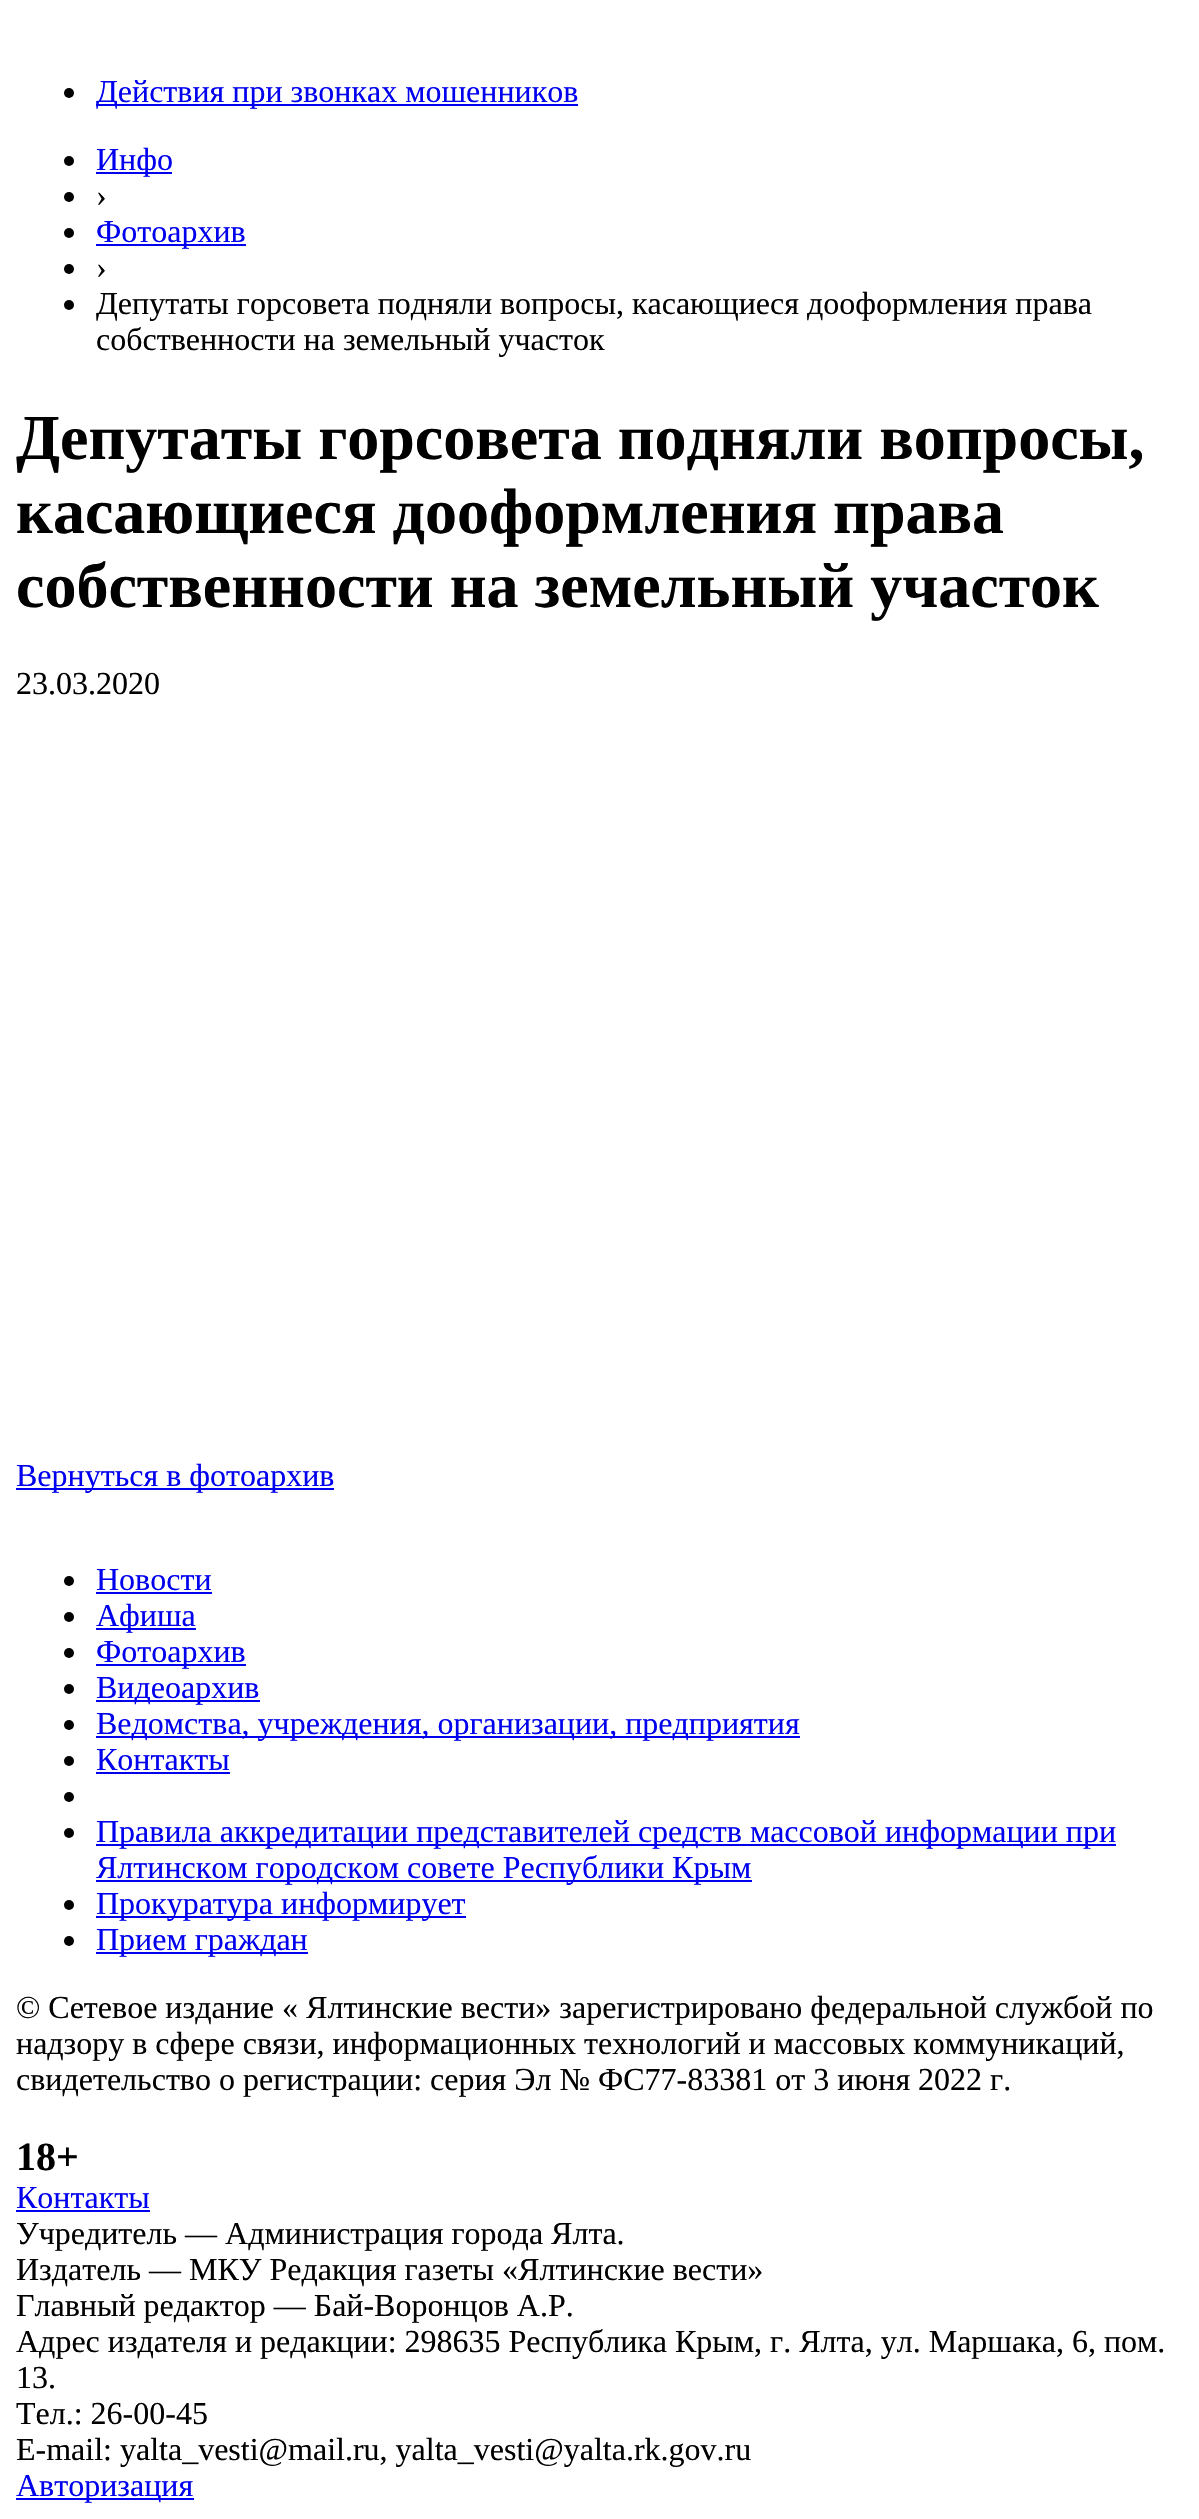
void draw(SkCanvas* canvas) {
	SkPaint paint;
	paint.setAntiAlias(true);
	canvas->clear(0xffffffff);
	paint.setColor(0xff000000);
	canvas->drawCircle(69, 93, 5, paint);
	paint.setColor(0xff0000ee);
	canvas->drawRect(SkRect::MakeXYWH(96, 104, 482, 2), paint);
	SkFont f1(fontMgr->matchFamilyStyle("Liberation Serif", SkFontStyle::Normal()), 32);
	f1.setSubpixel(true);
	canvas->drawString("Действия при звонках мошенников", 96, 102, f1, paint);
	paint.setColor(0xff000000);
	canvas->drawCircle(69, 161, 5, paint);
	paint.setColor(0xff0000ee);
	canvas->drawRect(SkRect::MakeXYWH(96, 172, 76, 2), paint);
	canvas->drawString("Инфо", 96, 170, f1, paint);
	paint.setColor(0xff000000);
	canvas->drawCircle(69, 197, 5, paint);
	canvas->drawString("›", 96, 206, f1, paint);
	canvas->drawCircle(69, 233, 5, paint);
	paint.setColor(0xff0000ee);
	canvas->drawRect(SkRect::MakeXYWH(96, 244, 150, 2), paint);
	canvas->drawString("Фотоархив", 96, 242, f1, paint);
	paint.setColor(0xff000000);
	canvas->drawCircle(69, 269, 5, paint);
	canvas->drawString("›", 96, 278, f1, paint);
	canvas->drawCircle(69, 305, 5, paint);
	canvas->drawString("Депутаты горсовета подняли вопросы, касающиеся дооформления права", 96, 314, f1, paint);
	canvas->drawString("собственности на земельный участок", 96, 350, f1, paint);
	SkFont f2(fontMgr->matchFamilyStyle("Liberation Serif", SkFontStyle::Bold()), 64);
	f2.setSubpixel(true);
	canvas->drawString("Депутаты горсовета подняли вопросы,", 16, 459, f2, paint);
	canvas->drawString("касающиеся дооформления права", 16, 533, f2, paint);
	canvas->drawString("собственности на земельный участок", 16, 607, f2, paint);
	canvas->drawString("23.03.2020", 16, 694, f1, paint);
	paint.setColor(0xff0000ee);
	canvas->drawRect(SkRect::MakeXYWH(16, 1488, 318, 2), paint);
	canvas->drawString("Вернуться в фотоархив", 16, 1486, f1, paint);
	paint.setColor(0xff000000);
	canvas->drawCircle(69, 1581, 5, paint);
	paint.setColor(0xff0000ee);
	canvas->drawString("Новости", 96, 1590, f1, paint);
	canvas->drawRect(SkRect::MakeXYWH(96, 1592, 116, 2), paint);
	paint.setColor(0xff000000);
	canvas->drawCircle(69, 1617, 5, paint);
	paint.setColor(0xff0000ee);
	canvas->drawRect(SkRect::MakeXYWH(96, 1628, 100, 2), paint);
	canvas->drawString("Афиша", 96, 1626, f1, paint);
	paint.setColor(0xff000000);
	canvas->drawCircle(69, 1653, 5, paint);
	paint.setColor(0xff0000ee);
	canvas->drawRect(SkRect::MakeXYWH(96, 1664, 150, 2), paint);
	canvas->drawString("Фотоархив", 96, 1662, f1, paint);
	paint.setColor(0xff000000);
	canvas->drawCircle(69, 1689, 5, paint);
	paint.setColor(0xff0000ee);
	canvas->drawRect(SkRect::MakeXYWH(96, 1700, 164, 2), paint);
	canvas->drawString("Видеоархив", 96, 1698, f1, paint);
	paint.setColor(0xff000000);
	canvas->drawCircle(69, 1725, 5, paint);
	paint.setColor(0xff0000ee);
	canvas->drawRect(SkRect::MakeXYWH(96, 1736, 704, 2), paint);
	canvas->drawString("Ведомства, учреждения, организации, предприятия", 96, 1734, f1, paint);
	paint.setColor(0xff000000);
	canvas->drawCircle(69, 1761, 5, paint);
	paint.setColor(0xff0000ee);
	canvas->drawString("Контакты", 96, 1770, f1, paint);
	canvas->drawRect(SkRect::MakeXYWH(96, 1772, 134, 2), paint);
	paint.setColor(0xff000000);
	canvas->drawCircle(69, 1797, 5, paint);
	canvas->drawCircle(69, 1833, 5, paint);
	paint.setColor(0xff0000ee);
	canvas->drawRect(SkRect::MakeXYWH(96, 1844, 1020, 2), paint);
	canvas->drawString("Правила аккредитации представителей средств массовой информации при", 96, 1842, f1, paint);
	canvas->drawRect(SkRect::MakeXYWH(96, 1880, 656, 2), paint);
	canvas->drawString("Ялтинском городском совете Республики Крым", 96, 1878, f1, paint);
	paint.setColor(0xff000000);
	canvas->drawCircle(69, 1905, 5, paint);
	paint.setColor(0xff0000ee);
	canvas->drawRect(SkRect::MakeXYWH(96, 1916, 370, 2), paint);
	canvas->drawString("Прокуратура информирует", 96, 1914, f1, paint);
	paint.setColor(0xff000000);
	canvas->drawCircle(69, 1941, 5, paint);
	paint.setColor(0xff0000ee);
	canvas->drawRect(SkRect::MakeXYWH(96, 1952, 212, 2), paint);
	canvas->drawString("Прием граждан", 96, 1950, f1, paint);
	paint.setColor(0xff000000);
	canvas->drawString("© Сетевое издание « Ялтинские вести» зарегистрировано федеральной службой по", 16, 2018, f1, paint);
	canvas->drawString("надзору в сфере связи, информационных технологий и массовых коммуникаций,", 16, 2054, f1, paint);
	canvas->drawString("свидетельство о регистрации: серия Эл № ФС77-83381 от 3 июня 2022 г.", 16, 2090, f1, paint);
	SkFont f3(fontMgr->matchFamilyStyle("Liberation Serif", SkFontStyle::Bold()), 40);
	f3.setSubpixel(true);
	canvas->drawString("18+", 16, 2170, f3, paint);
	paint.setColor(0xff0000ee);
	canvas->drawString("Контакты", 16, 2208, f1, paint);
	canvas->drawRect(SkRect::MakeXYWH(16, 2210, 134, 2), paint);
	paint.setColor(0xff000000);
	canvas->drawString("Учредитель — Администрация города Ялта.", 16, 2244, f1, paint);
	canvas->drawString("Издатель — МКУ Редакция газеты «Ялтинские вести»", 16, 2280, f1, paint);
	canvas->drawString("Главный редактор — Бай-Воронцов А.Р.", 16, 2316, f1, paint);
	canvas->drawString("Адрес издателя и редакции: 298635 Республика Крым, г. Ялта, ул. Маршака, 6, пом.", 16, 2352, f1, paint);
	canvas->drawString("13.", 16, 2388, f1, paint);
	canvas->drawString("Тел.: 26-00-45", 16, 2424, f1, paint);
	canvas->drawString("E-mail: yalta_vesti@mail.ru, yalta_vesti@yalta.rk.gov.ru", 16, 2460, f1, paint);
	paint.setColor(0xff0000ee);
	canvas->drawRect(SkRect::MakeXYWH(16, 2498, 178, 2), paint);
	canvas->drawString("Авторизация", 16, 2496, f1, paint);
}
